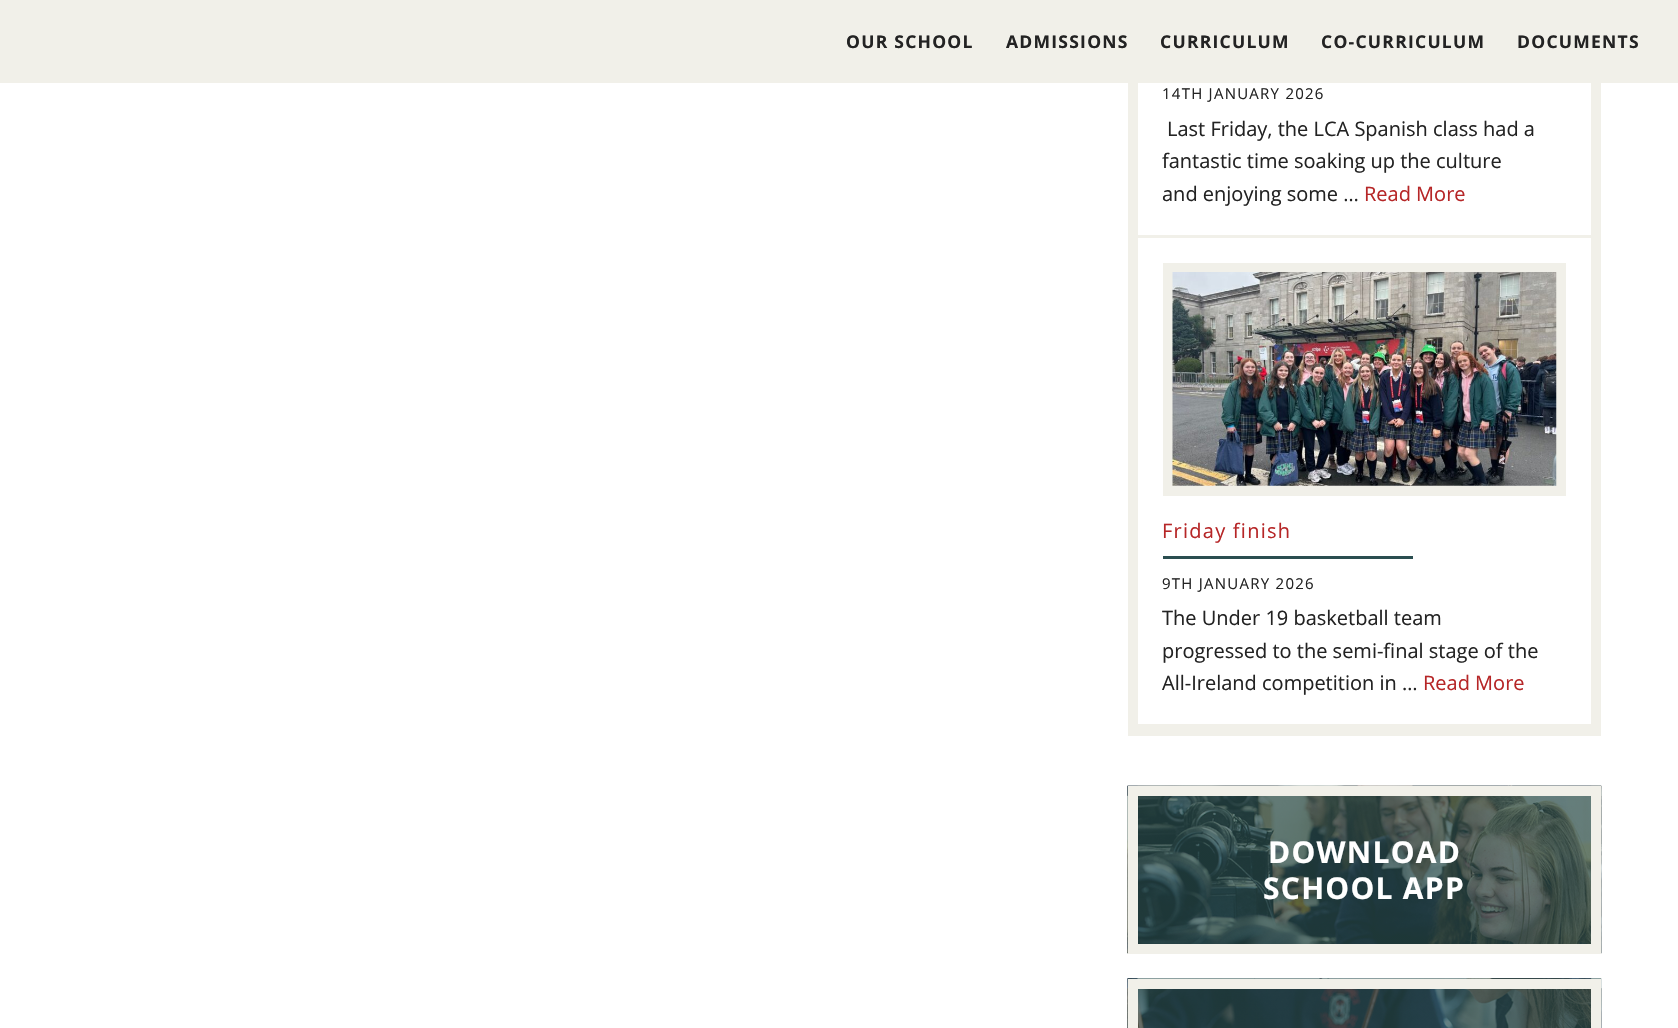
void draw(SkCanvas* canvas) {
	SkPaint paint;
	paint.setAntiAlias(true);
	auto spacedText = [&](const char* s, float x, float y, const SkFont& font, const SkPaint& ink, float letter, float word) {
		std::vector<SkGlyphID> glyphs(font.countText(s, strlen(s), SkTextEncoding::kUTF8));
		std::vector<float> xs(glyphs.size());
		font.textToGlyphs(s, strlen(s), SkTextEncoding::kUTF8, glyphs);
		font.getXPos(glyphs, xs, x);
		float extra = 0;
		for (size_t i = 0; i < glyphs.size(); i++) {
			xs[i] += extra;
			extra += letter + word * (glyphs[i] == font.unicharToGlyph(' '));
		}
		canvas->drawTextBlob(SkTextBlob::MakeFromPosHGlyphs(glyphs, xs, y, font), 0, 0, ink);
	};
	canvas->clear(0xffffffff);
	paint.setStroke(true);
	paint.setStrokeWidth(10);
	paint.setColor(0xfff1f0e9);
	canvas->drawRect(SkRect::MakeXYWH(1133, -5, 463, 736), paint);
	paint.setStroke(false);
	canvas->drawRect(SkRect::MakeXYWH(0, 0, 1678, 83), paint);
	SkFont f1(fontMgr->matchFamilyStyle("Open Sans", SkFontStyle::Bold()), 17.5);
	f1.setSubpixel(true);
	paint.setColor(0xff232323);
	spacedText("OUR SCHOOL", 846, 48, f1, paint, 1.25, 0);
	spacedText("ADMISSIONS", 1006, 48, f1, paint, 1.25, 0);
	spacedText("CURRICULUM", 1160, 48, f1, paint, 1.25, 0);
	spacedText("CO-CURRICULUM", 1321, 48, f1, paint, 1.25, 0);
	spacedText("DOCUMENTS", 1517, 48, f1, paint, 1.25, 0);
	paint.setColor(0xfff1f0e9);
	canvas->drawRect(SkRect::MakeXYWH(1138, 235, 453, 3), paint);
	SkFont f2(fontMgr->matchFamilyStyle("Open Sans", SkFontStyle::Normal()), 15);
	f2.setSubpixel(true);
	paint.setColor(0xff232323);
	spacedText("14TH JANUARY 2026", 1162, 99, f2, paint, 1.25, 0);
	SkFont f3(fontMgr->matchFamilyStyle("Open Sans", SkFontStyle::Normal()), 20);
	f3.setSubpixel(true);
	canvas->drawString("Last Friday, the LCA Spanish class had a", 1167, 136, f3, paint);
	canvas->drawString("fantastic time soaking up the culture", 1162, 168, f3, paint);
	canvas->drawString("and enjoying some …", 1162, 201, f3, paint);
	paint.setColor(0xffb62627);
	canvas->drawString("Read More", 1364, 201, f3, paint);
	paint.setColor(0xfff1f0e9);
	canvas->drawRect(SkRect::MakeXYWH(1138, 724, 453, 2), paint);
	paint.setStroke(true);
	canvas->drawRect(SkRect::MakeXYWH(1168, 268, 393, 223), paint);
	canvas->drawImageRect(SkImages::DeferredFromEncodedData(SkData::MakeFromFileName("img1.png")), SkRect::MakeXYWH(1172, 272, 385, 214), SkSamplingOptions());
	paint.setStroke(false);
	paint.setColor(0xffb62627);
	spacedText("Friday finish", 1162, 538, f3, paint, 1.25, 0);
	paint.setColor(0xff2a4e50);
	canvas->drawRect(SkRect::MakeXYWH(1163, 556, 250, 3), paint);
	paint.setColor(0xff232323);
	spacedText("9TH JANUARY 2026", 1162, 589, f2, paint, 1.25, 0);
	canvas->drawString("The Under 19 basketball team", 1162, 625, f3, paint);
	canvas->drawString("progressed to the semi-final stage of the", 1162, 658, f3, paint);
	canvas->drawString("All-Ireland competition in …", 1162, 690, f3, paint);
	paint.setColor(0xffb62627);
	canvas->drawString("Read More", 1423, 690, f3, paint);
	canvas->drawImageRect(SkImages::DeferredFromEncodedData(SkData::MakeFromFileName("img2.png")), SkRect::MakeXYWH(1127, 785, 475, 169), SkSamplingOptions());
	paint.setStroke(true);
	paint.setColor(0xfff1f0e9);
	canvas->drawRect(SkRect::MakeXYWH(1133, 791, 463, 158), paint);
	SkFont f4(fontMgr->matchFamilyStyle("Open Sans", SkFontStyle::Bold()), 30);
	f4.setSubpixel(true);
	paint.setStroke(false);
	paint.setColor(0xffffffff);
	spacedText("DOWNLOAD", 1268, 863, f4, paint, 1.25, 0);
	spacedText("SCHOOL APP", 1263, 899, f4, paint, 1.25, 0);
	canvas->drawImageRect(SkImages::DeferredFromEncodedData(SkData::MakeFromFileName("img3.png")), SkRect::MakeXYWH(1127, 978, 475, 50), SkSamplingOptions());
	paint.setStroke(true);
	paint.setColor(0xfff1f0e9);
	canvas->drawRect(SkRect::MakeXYWH(1133, 984, 463, 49), paint);
}
